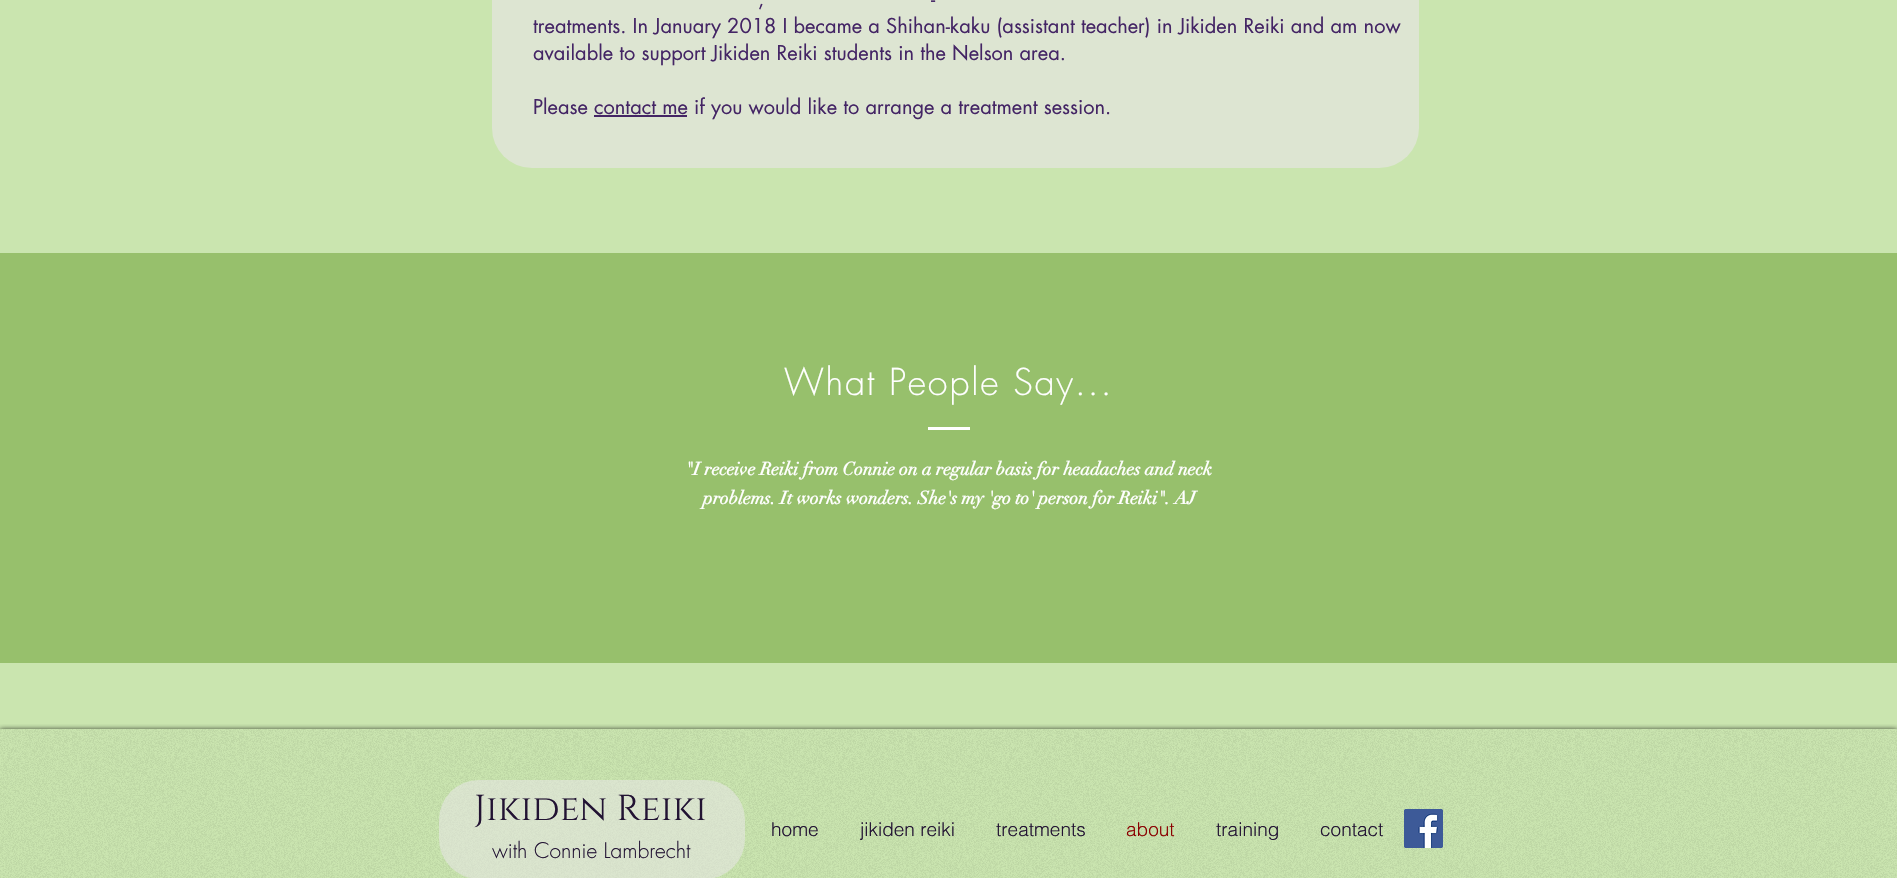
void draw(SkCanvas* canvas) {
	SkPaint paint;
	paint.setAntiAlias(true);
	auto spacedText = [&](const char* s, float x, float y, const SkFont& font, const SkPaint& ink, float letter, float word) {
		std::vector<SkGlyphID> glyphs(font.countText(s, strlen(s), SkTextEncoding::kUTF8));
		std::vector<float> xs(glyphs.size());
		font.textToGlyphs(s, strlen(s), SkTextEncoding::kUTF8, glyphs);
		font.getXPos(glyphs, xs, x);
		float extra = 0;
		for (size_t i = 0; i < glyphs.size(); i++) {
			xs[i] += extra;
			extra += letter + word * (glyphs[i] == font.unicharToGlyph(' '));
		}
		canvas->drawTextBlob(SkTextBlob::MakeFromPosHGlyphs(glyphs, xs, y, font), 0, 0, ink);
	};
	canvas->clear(0xffcae5af);
	paint.setColor(0xffdde5d2);
	canvas->drawRoundRect(SkRect::MakeXYWH(492, -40, 927, 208), 40, 40, paint);
	SkFont f1(fontMgr->matchFamilyStyle("futura", SkFontStyle::Normal()), 20);
	f1.setSubpixel(true);
	paint.setColor(0xff442565);
	canvas->drawString("-", 931, 6, f1, paint);
	canvas->drawString(",", 758, 6, f1, paint);
	canvas->drawString("treatments. In January 2018 I became a Shihan-kaku (assistant teacher) in Jikiden Reiki and am now", 533, 33, f1, paint);
	canvas->drawString("available to support Jikiden Reiki students in the Nelson area.", 533, 60, f1, paint);
	canvas->drawString("Please contact me if you would like to arrange a treatment session.", 533, 114, f1, paint);
	canvas->drawRect(SkRect::MakeXYWH(594, 115, 93, 2), paint);
	paint.setColor(0xff97c06c);
	canvas->drawRect(SkRect::MakeXYWH(0, 253, 1897, 410), paint);
	SkFont f2(fontMgr->matchFamilyStyle("futura", SkFontStyle(300, SkFontStyle::kNormal_Width, SkFontStyle::kUpright_Slant)), 36);
	f2.setSubpixel(true);
	paint.setColor(0xffffffff);
	spacedText("What People Say...", 784, 395, f2, paint, 1.75, 0);
	canvas->drawRect(SkRect::MakeXYWH(928, 427, 42, 3), paint);
	SkFont f3(fontMgr->matchFamilyStyle("didot", SkFontStyle::Bold()), 18);
	f3.setSubpixel(true);
	canvas->drawString("\"I receive Reiki from Connie on a regular basis for headaches and neck", 685, 475, f3, paint);
	canvas->drawString("problems. It works wonders. She's my 'go to' person for Reiki\". AJ", 703, 504, f3, paint);
	canvas->save();
	canvas->clipRect(SkRect::MakeXYWH(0, 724, 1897, 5));
	paint.setColor(0xb3000000);
	paint.setMaskFilter(SkMaskFilter::MakeBlur(kNormal_SkBlurStyle, 2.5));
	canvas->drawRect(SkRect::MakeXYWH(0, 729, 1897, 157), paint);
	paint.setMaskFilter(nullptr);
	canvas->restore();
	canvas->drawImageRect(SkImages::DeferredFromEncodedData(SkData::MakeFromFileName("img1.png")), SkRect::MakeXYWH(0, 729, 1897, 149), SkSamplingOptions());
	paint.setColor(0x8fe8e6e6);
	canvas->drawRoundRect(SkRect::MakeXYWH(439, 780, 306, 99), 40, 40, paint);
	SkFont f4(fontMgr->matchFamilyStyle("Cinzel", SkFontStyle::Normal()), 36);
	f4.setSubpixel(true);
	paint.setColor(0xff221333);
	canvas->drawString("Jikiden Reiki", 474, 820, f4, paint);
	SkFont f5(fontMgr->matchFamilyStyle("futura", SkFontStyle(300, SkFontStyle::kNormal_Width, SkFontStyle::kUpright_Slant)), 21);
	f5.setSubpixel(true);
	canvas->drawString("with Connie Lambrecht", 492, 858, f5, paint);
	SkFont f6(fontMgr->matchFamilyStyle("helvetica", SkFontStyle(300, SkFontStyle::kNormal_Width, SkFontStyle::kUpright_Slant)), 19);
	f6.setSubpixel(true);
	canvas->drawString("home", 771, 836, f6, paint);
	canvas->drawString("jikiden reiki", 860, 836, f6, paint);
	canvas->drawString("treatments", 996, 836, f6, paint);
	paint.setColor(0xff8b0000);
	canvas->drawString("about", 1126, 836, f6, paint);
	paint.setColor(0xff221333);
	canvas->drawString("training", 1216, 836, f6, paint);
	canvas->drawString("contact", 1320, 836, f6, paint);
	canvas->drawImageRect(SkImages::DeferredFromEncodedData(SkData::MakeFromFileName("img2.png")), SkRect::MakeXYWH(1404, 809, 39, 39), SkSamplingOptions());
}
